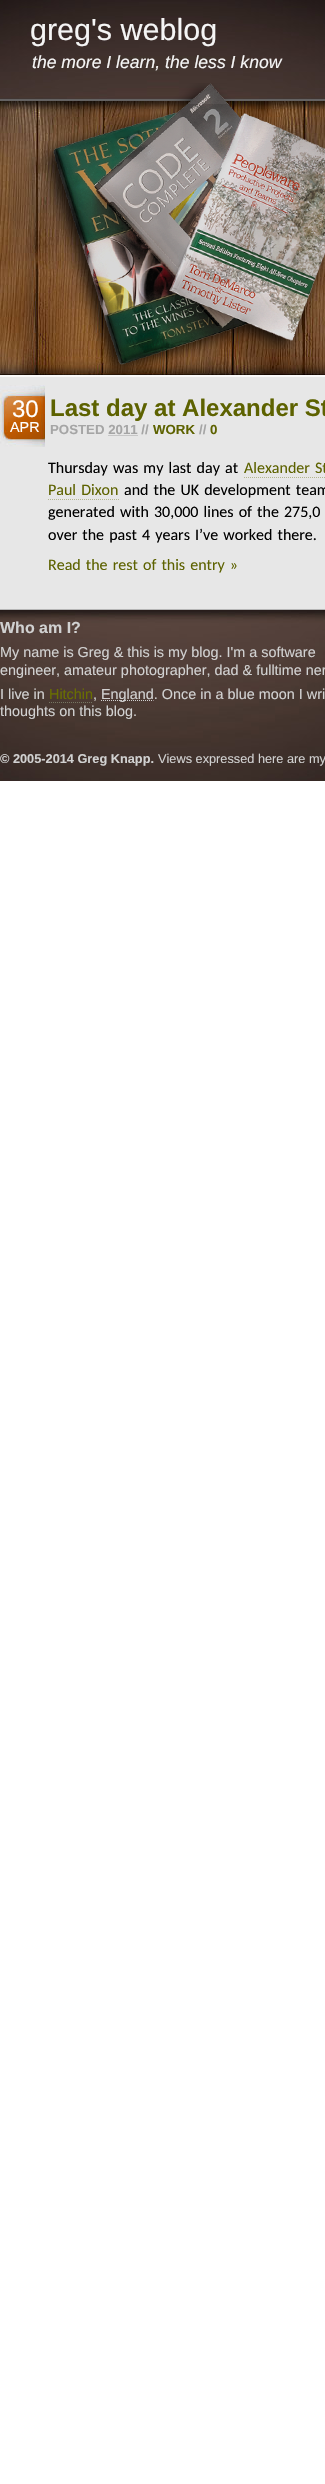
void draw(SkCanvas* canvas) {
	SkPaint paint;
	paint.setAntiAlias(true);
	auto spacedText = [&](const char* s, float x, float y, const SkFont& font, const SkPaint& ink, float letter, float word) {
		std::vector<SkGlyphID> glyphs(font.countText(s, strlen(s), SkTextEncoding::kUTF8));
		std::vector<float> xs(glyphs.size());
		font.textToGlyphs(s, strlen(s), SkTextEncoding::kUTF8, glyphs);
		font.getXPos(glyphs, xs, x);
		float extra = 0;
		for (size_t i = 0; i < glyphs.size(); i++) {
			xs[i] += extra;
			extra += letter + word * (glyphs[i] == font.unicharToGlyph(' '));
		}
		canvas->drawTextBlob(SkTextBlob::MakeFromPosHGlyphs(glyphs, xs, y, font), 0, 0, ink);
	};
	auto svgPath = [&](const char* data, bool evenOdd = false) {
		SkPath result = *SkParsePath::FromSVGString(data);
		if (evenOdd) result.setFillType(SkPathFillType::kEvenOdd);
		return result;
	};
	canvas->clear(0xffffffff);
	paint.setColor(0xffe7e7e7);
	canvas->drawRect(SkRect::MakeXYWH(0, 377, 325, 232), paint);
	canvas->drawImageRect(SkImages::DeferredFromEncodedData(SkData::MakeFromFileName("img1.png")), SkRect::MakeXYWH(0, 0, 325, 99), SkSamplingOptions());
	paint.setColor(0xff646262);
	canvas->drawRect(SkRect::MakeXYWH(0, 99, 325, 2), paint);
	SkFont f1(fontMgr->matchFamilyStyle("Liberation Sans", SkFontStyle::Normal()), 30.5);
	f1.setSubpixel(true);
	paint.setColor(0xfff5f5f5);
	canvas->drawString("greg's weblog", 30, 40, f1, paint);
	SkFont f2(fontMgr->matchFamilyStyle("Liberation Sans", SkFontStyle::Italic()), 17.6);
	f2.setSubpixel(true);
	canvas->drawString("the more I learn, the less I know", 32, 68, f2, paint);
	canvas->drawImageRect(SkImages::DeferredFromEncodedData(SkData::MakeFromFileName("img2.png")), SkRect::MakeXYWH(0, 101, 325, 274), SkSamplingOptions());
	canvas->drawImageRect(SkImages::DeferredFromEncodedData(SkData::MakeFromFileName("img3.png")), SkRect::MakeXYWH(38, 83, 287, 291), SkSamplingOptions());
	paint.setColor(0xfff9f9f9);
	canvas->drawRect(SkRect::MakeXYWH(0, 375, 325, 2), paint);
	canvas->drawImageRect(SkImages::DeferredFromEncodedData(SkData::MakeFromFileName("img4.png")), SkRect::MakeXYWH(0, 385, 45, 62), SkSamplingOptions());
	SkFont f3(fontMgr->matchFamilyStyle("Liberation Sans", SkFontStyle::Normal()), 24);
	f3.setSubpixel(true);
	paint.setColor(0xffffffff);
	canvas->drawString("30", 12, 417, f3, paint);
	SkFont f4(fontMgr->matchFamilyStyle("Liberation Sans", SkFontStyle::Normal()), 14.4);
	f4.setSubpixel(true);
	canvas->drawString("APR", 10, 432, f4, paint);
	SkFont f5(fontMgr->matchFamilyStyle("Liberation Sans", SkFontStyle::Bold()), 24);
	f5.setSubpixel(true);
	paint.setColor(0xff5d6200);
	canvas->drawString("Last day at Alexander St", 50, 416, f5, paint);
	SkFont f6(fontMgr->matchFamilyStyle("Liberation Sans", SkFontStyle::Bold()), 13.25);
	f6.setSubpixel(true);
	paint.setColor(0xffa5a5a5);
	canvas->drawString("POSTED 2011 //", 50, 434, f6, paint);
	paint.setStroke(true);
	paint.setStrokeWidth(1);
	paint.setPathEffect(SkDashPathEffect::Make({{1, 1}}, 0));
	canvas->drawPath(svgPath("M108.5 435.5H138"), paint);
	paint.setPathEffect(nullptr);
	paint.setStroke(false);
	paint.setColor(0xff5d6200);
	canvas->drawString("WORK", 153, 434, f6, paint);
	paint.setColor(0xffa5a5a5);
	canvas->drawString("//", 199, 434, f6, paint);
	paint.setColor(0xff5d6200);
	canvas->drawString("0", 210, 434, f6, paint);
	SkFont f7(fontMgr->matchFamilyStyle("Carlito", SkFontStyle::Normal()), 16);
	f7.setSubpixel(true);
	paint.setColor(0xff000000);
	spacedText("Thursday was my last day at", 48, 473, f7, paint, 0, 1.5);
	paint.setColor(0xff5d6200);
	spacedText("Alexander St", 244, 473, f7, paint, 0, 1.5);
	paint.setStroke(true);
	paint.setColor(0xffb3b590);
	paint.setPathEffect(SkDashPathEffect::Make({{1, 1}}, 0));
	canvas->drawPath(svgPath("M244 477.5H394"), paint);
	paint.setPathEffect(nullptr);
	paint.setStroke(false);
	paint.setColor(0xff5d6200);
	spacedText("Paul Dixon", 48, 495, f7, paint, 0, 1.5);
	paint.setStroke(true);
	paint.setColor(0xffb3b590);
	paint.setPathEffect(SkDashPathEffect::Make({{1, 1}}, 0));
	canvas->drawPath(svgPath("M48 499.5H119"), paint);
	paint.setPathEffect(nullptr);
	paint.setStroke(false);
	paint.setColor(0xff000000);
	spacedText("and the UK development team", 124, 495, f7, paint, 0, 1.5);
	spacedText("generated with 30,000 lines of the 275,0", 48, 517, f7, paint, 0, 1.5);
	spacedText("over the past 4 years I’ve worked there.", 48, 540, f7, paint, 0, 1.5);
	paint.setColor(0xff5d6200);
	spacedText("Read the rest of this entry »", 48, 570, f7, paint, 0, 1.5);
	canvas->drawImageRect(SkImages::DeferredFromEncodedData(SkData::MakeFromFileName("img5.png")), SkRect::MakeXYWH(0, 610, 325, 171), SkSamplingOptions());
	paint.setColor(0xffb6b6b6);
	canvas->drawRect(SkRect::MakeXYWH(0, 609, 325, 1), paint);
	SkFont f8(fontMgr->matchFamilyStyle("Liberation Sans", SkFontStyle::Bold()), 16);
	f8.setSubpixel(true);
	paint.setColor(0xffd1d1d1);
	canvas->drawString("Who am I?", 0, 633, f8, paint);
	canvas->drawString("My name is Greg & this is my blog. I'm a software", 0, 657, f4, paint);
	canvas->drawString("engineer, amateur photographer, dad & fulltime ner", 0, 675, f4, paint);
	canvas->drawString("I live in", 0, 699, f4, paint);
	paint.setColor(0xff696f00);
	canvas->drawString("Hitchin", 49, 699, f4, paint);
	paint.setStroke(true);
	paint.setColor(0xff757662);
	paint.setPathEffect(SkDashPathEffect::Make({{1, 1}}, 0));
	canvas->drawPath(svgPath("M49 702.5H93"), paint);
	paint.setPathEffect(nullptr);
	paint.setStroke(false);
	paint.setColor(0xffd1d1d1);
	canvas->drawString(",", 93, 699, f4, paint);
	paint.setStroke(true);
	paint.setPathEffect(SkDashPathEffect::Make({{1, 1}}, 0));
	canvas->drawPath(svgPath("M101 700.5H153.5"), paint);
	paint.setPathEffect(nullptr);
	paint.setStroke(false);
	canvas->drawString("England. Once in a blue moon I wri", 101, 699, f4, paint);
	canvas->drawString("thoughts on this blog.", 0, 716, f4, paint);
	SkFont f9(fontMgr->matchFamilyStyle("Liberation Sans", SkFontStyle::Bold()), 12.75);
	f9.setSubpixel(true);
	canvas->drawString("© 2005-2014 Greg Knapp.", 0, 763, f9, paint);
	SkFont f10(fontMgr->matchFamilyStyle("Liberation Sans", SkFontStyle::Normal()), 12.75);
	f10.setSubpixel(true);
	canvas->drawString("Views expressed here are my", 158, 763, f10, paint);
}
